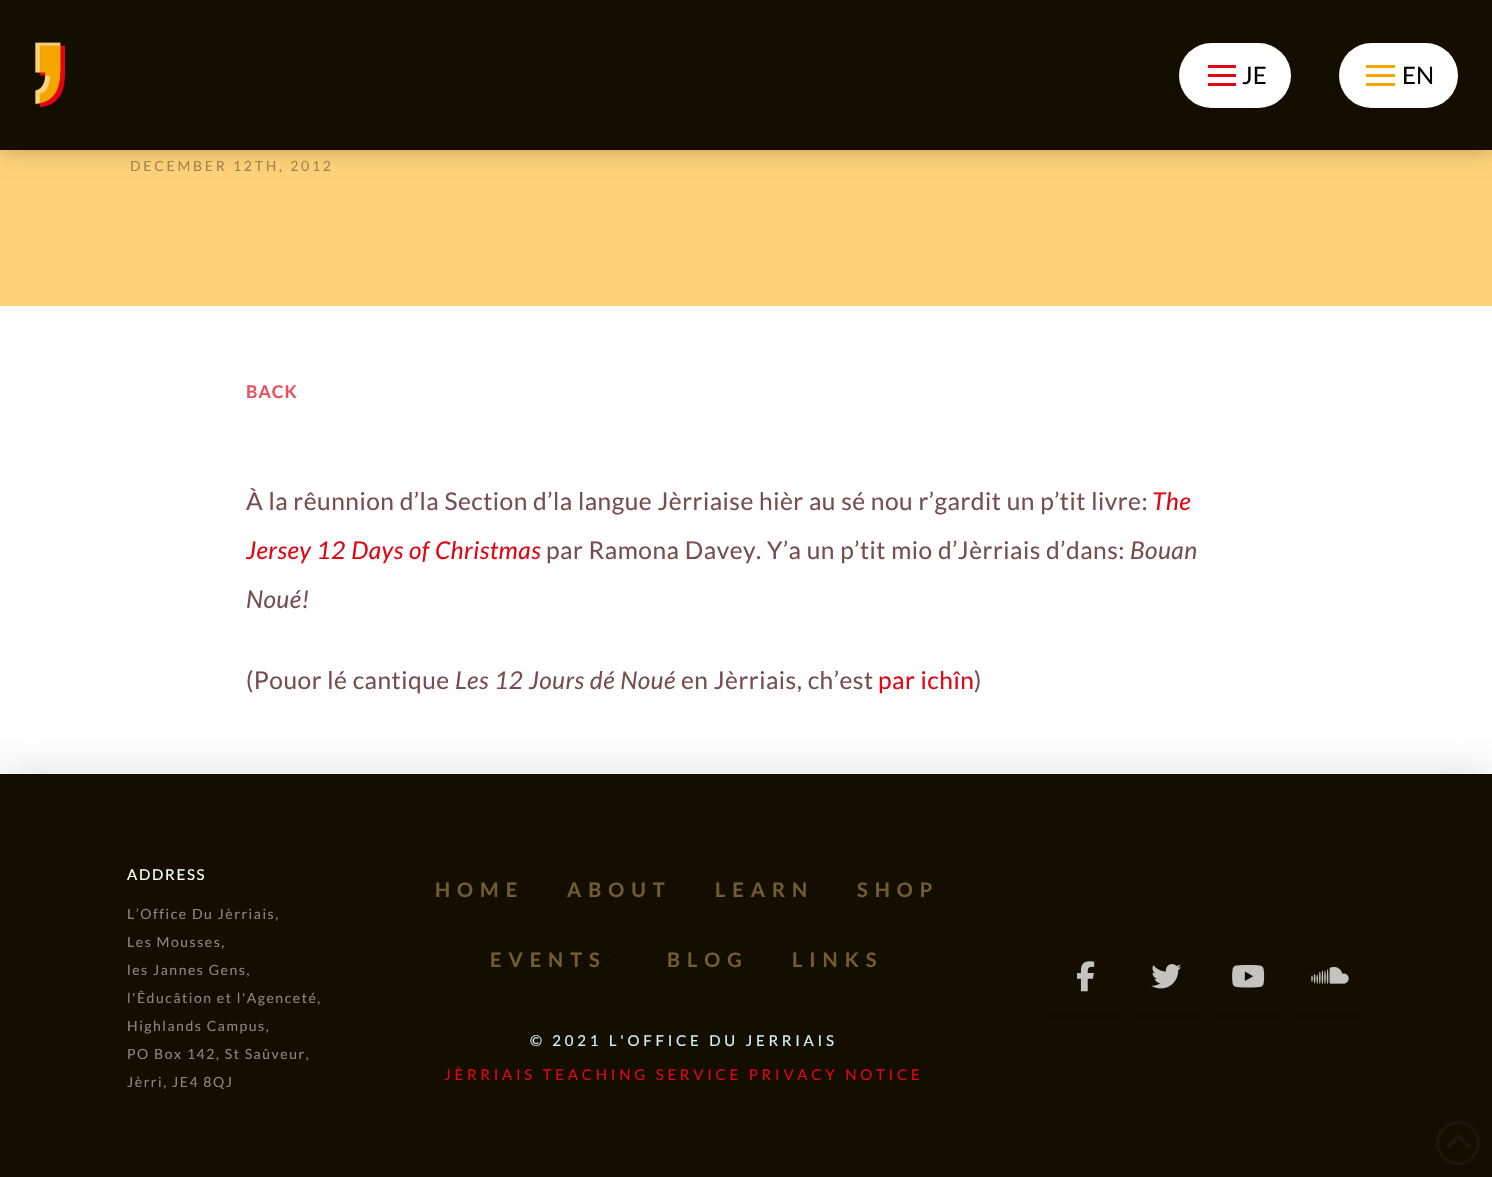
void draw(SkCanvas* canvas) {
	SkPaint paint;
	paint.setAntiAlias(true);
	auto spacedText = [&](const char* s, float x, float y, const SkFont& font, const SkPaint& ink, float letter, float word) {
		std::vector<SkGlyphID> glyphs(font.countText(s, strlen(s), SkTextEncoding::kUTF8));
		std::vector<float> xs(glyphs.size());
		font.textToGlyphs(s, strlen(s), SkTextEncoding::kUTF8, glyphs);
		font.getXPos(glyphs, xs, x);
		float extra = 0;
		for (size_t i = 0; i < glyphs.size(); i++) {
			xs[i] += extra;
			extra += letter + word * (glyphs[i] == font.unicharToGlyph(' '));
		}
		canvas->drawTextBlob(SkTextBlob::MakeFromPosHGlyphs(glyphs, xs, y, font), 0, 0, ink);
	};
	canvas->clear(0xffffffff);
	paint.setColor(0xfffed27a);
	canvas->drawRect(SkRect::MakeXYWH(0, 150, 1492, 156), paint);
	paint.setColor(0x40000000);
	paint.setMaskFilter(SkMaskFilter::MakeBlur(kNormal_SkBlurStyle, 10));
	canvas->drawRect(SkRect::MakeXYWH(0, 0, 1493, 150), paint);
	paint.setMaskFilter(nullptr);
	paint.setColor(0xff140e00);
	canvas->drawRect(SkRect::MakeXYWH(0, 0, 1492, 150), paint);
	canvas->drawImageRect(SkImages::DeferredFromEncodedData(SkData::MakeFromFileName("img1.png")), SkRect::MakeXYWH(35, 42, 30, 66), SkSamplingOptions());
	paint.setColor(0xffffffff);
	canvas->drawRoundRect(SkRect::MakeXYWH(1179, 43, 112, 65), 32.5, 32.5, paint);
	paint.setColor(0xffe30414);
	canvas->drawRect(SkRect::MakeXYWH(1208, 65, 28, 3), paint);
	canvas->drawRect(SkRect::MakeXYWH(1208, 74, 28, 3), paint);
	canvas->drawRect(SkRect::MakeXYWH(1208, 83, 28, 3), paint);
	SkFont f1(fontMgr->matchFamilyStyle("Lato", SkFontStyle::Normal()), 24);
	f1.setSubpixel(true);
	paint.setColor(0xff000000);
	canvas->drawString("JE", 1242, 84, f1, paint);
	paint.setColor(0xffffffff);
	canvas->drawRoundRect(SkRect::MakeXYWH(1339, 43, 119, 65), 32.5, 32.5, paint);
	paint.setColor(0xfff7a600);
	canvas->drawRect(SkRect::MakeXYWH(1366, 65, 29, 3), paint);
	canvas->drawRect(SkRect::MakeXYWH(1366, 74, 29, 3), paint);
	canvas->drawRect(SkRect::MakeXYWH(1366, 83, 29, 3), paint);
	paint.setColor(0xff000000);
	canvas->drawString("EN", 1402, 84, f1, paint);
	SkFont f2(fontMgr->matchFamilyStyle("Lato", SkFontStyle::Normal()), 14);
	f2.setSubpixel(true);
	paint.setColor(0xffa08449);
	spacedText("DECEMBER 12TH, 2012", 130, 171, f2, paint, 2.75, 0);
	SkFont f3(fontMgr->matchFamilyStyle("Lato", SkFontStyle::Bold()), 17.5);
	f3.setSubpixel(true);
	paint.setColor(0xffeb4f5b);
	spacedText("BACK", 246, 398, f3, paint, 1, 0);
	SkFont f4(fontMgr->matchFamilyStyle("Lato", SkFontStyle::Normal()), 24.5);
	f4.setSubpixel(true);
	paint.setColor(0xff774d50);
	spacedText("À la rêunnion d’la Section d’la langue Jèrriaise hièr au sé nou r’gardit un p’tit livre:", 246, 510, f4, paint, 0.5, 0);
	SkFont f5(fontMgr->matchFamilyStyle("Lato", SkFontStyle::Italic()), 24.5);
	f5.setSubpixel(true);
	paint.setColor(0xffe30414);
	spacedText("The", 1152, 510, f5, paint, 0.5, 0);
	spacedText("Jersey 12 Days of Christmas", 246, 559, f5, paint, 0.5, 0);
	paint.setColor(0xff774d50);
	spacedText("par Ramona Davey. Y’a un p’tit mio d’Jèrriais d’dans:", 546, 559, f4, paint, 0.5, 0);
	spacedText("Bouan", 1130, 559, f5, paint, 0.5, 0);
	spacedText("Noué!", 246, 608, f5, paint, 0.5, 0);
	spacedText("(Pouor lé cantique", 246, 689, f4, paint, 0.5, 0);
	spacedText("Les 12 Jours dé Noué", 455, 689, f5, paint, 0.5, 0);
	spacedText("en Jèrriais, ch’est", 681, 689, f4, paint, 0.5, 0);
	paint.setColor(0xffe30414);
	spacedText("par ichîn", 878, 689, f4, paint, 0.5, 0);
	paint.setColor(0xff774d50);
	spacedText(")", 974, 689, f4, paint, 0.5, 0);
	paint.setColor(0x26000000);
	paint.setMaskFilter(SkMaskFilter::MakeBlur(kNormal_SkBlurStyle, 20));
	canvas->drawRect(SkRect::MakeXYWH(0, 776, 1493, 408), paint);
	paint.setMaskFilter(nullptr);
	paint.setColor(0xff140e00);
	canvas->drawRect(SkRect::MakeXYWH(0, 774, 1492, 403), paint);
	SkFont f6(fontMgr->matchFamilyStyle("Lato", SkFontStyle::Normal()), 15);
	f6.setSubpixel(true);
	paint.setColor(0xffffffff);
	spacedText("ADDRESS", 127, 880, f6, paint, 1.75, 0);
	paint.setColor(0xff8a8780);
	spacedText("L’Office Du Jèrriais,", 127, 919, f2, paint, 1.55, 0);
	spacedText("Les Mousses,", 127, 947, f2, paint, 1.55, 0);
	spacedText("les Jannes Gens,", 127, 975, f2, paint, 1.55, 0);
	spacedText("l'Êducâtion et l'Agenceté,", 127, 1003, f2, paint, 1.55, 0);
	spacedText("Highlands Campus,", 127, 1031, f2, paint, 1.55, 0);
	spacedText("PO Box 142, St Saûveur,", 127, 1059, f2, paint, 1.55, 0);
	spacedText("Jèrri, JE4 8QJ", 127, 1087, f2, paint, 1.55, 0);
	SkFont f7(fontMgr->matchFamilyStyle("Lato", SkFontStyle::Bold()), 20);
	f7.setSubpixel(true);
	paint.setColor(0xff725d31);
	spacedText("HOME", 435, 897, f7, paint, 7, 0);
	spacedText("ABOUT", 567, 897, f7, paint, 7, 0);
	spacedText("LEARN", 715, 897, f7, paint, 7, 0);
	spacedText("SHOP", 857, 897, f7, paint, 7, 0);
	spacedText("EVENTS", 490, 967, f7, paint, 7, 0);
	canvas->drawImageRect(SkImages::DeferredFromEncodedData(SkData::MakeFromFileName("img2.png")), SkRect::MakeXYWH(606, 954, 15, 8), SkSamplingOptions());
	spacedText("BLOG", 667, 967, f7, paint, 7, 0);
	spacedText("LINKS", 792, 967, f7, paint, 7, 0);
	paint.setColor(0xffd6efff);
	spacedText("© 2021 L'OFFICE DU JERRIAIS", 530, 1046, f6, paint, 3.75, 0);
	paint.setColor(0xffe30414);
	spacedText("JÈRRIAIS TEACHING SERVICE PRIVACY NOTICE", 444, 1080, f6, paint, 3.75, 0);
	paint.setColor(0xff0f0a00);
	canvas->drawRect(SkRect::MakeXYWH(1049, 1014, 75, 4), paint);
	canvas->drawImageRect(SkImages::DeferredFromEncodedData(SkData::MakeFromFileName("img3.png")), SkRect::MakeXYWH(1077, 961, 18, 31), SkSamplingOptions());
	paint.setColor(0x40000000);
	canvas->drawRect(SkRect::MakeXYWH(1129, 1014, 75, 4), paint);
	canvas->drawImageRect(SkImages::DeferredFromEncodedData(SkData::MakeFromFileName("img4.png")), SkRect::MakeXYWH(1151, 964, 30, 25), SkSamplingOptions());
	canvas->drawRect(SkRect::MakeXYWH(1209, 1014, 75, 4), paint);
	canvas->drawImageRect(SkImages::DeferredFromEncodedData(SkData::MakeFromFileName("img5.png")), SkRect::MakeXYWH(1232, 965, 33, 23), SkSamplingOptions());
	canvas->drawRect(SkRect::MakeXYWH(1289, 1014, 75, 4), paint);
	canvas->drawImageRect(SkImages::DeferredFromEncodedData(SkData::MakeFromFileName("img6.png")), SkRect::MakeXYWH(1311, 966, 38, 18), SkSamplingOptions());
	paint.setStroke(true);
	paint.setStrokeWidth(3);
	paint.setColor(0xff1b170f);
	canvas->drawCircle(1458, 1143, 20.5, paint);
	canvas->drawImageRect(SkImages::DeferredFromEncodedData(SkData::MakeFromFileName("img7.png")), SkRect::MakeXYWH(1447, 1134, 24, 14), SkSamplingOptions());
}
